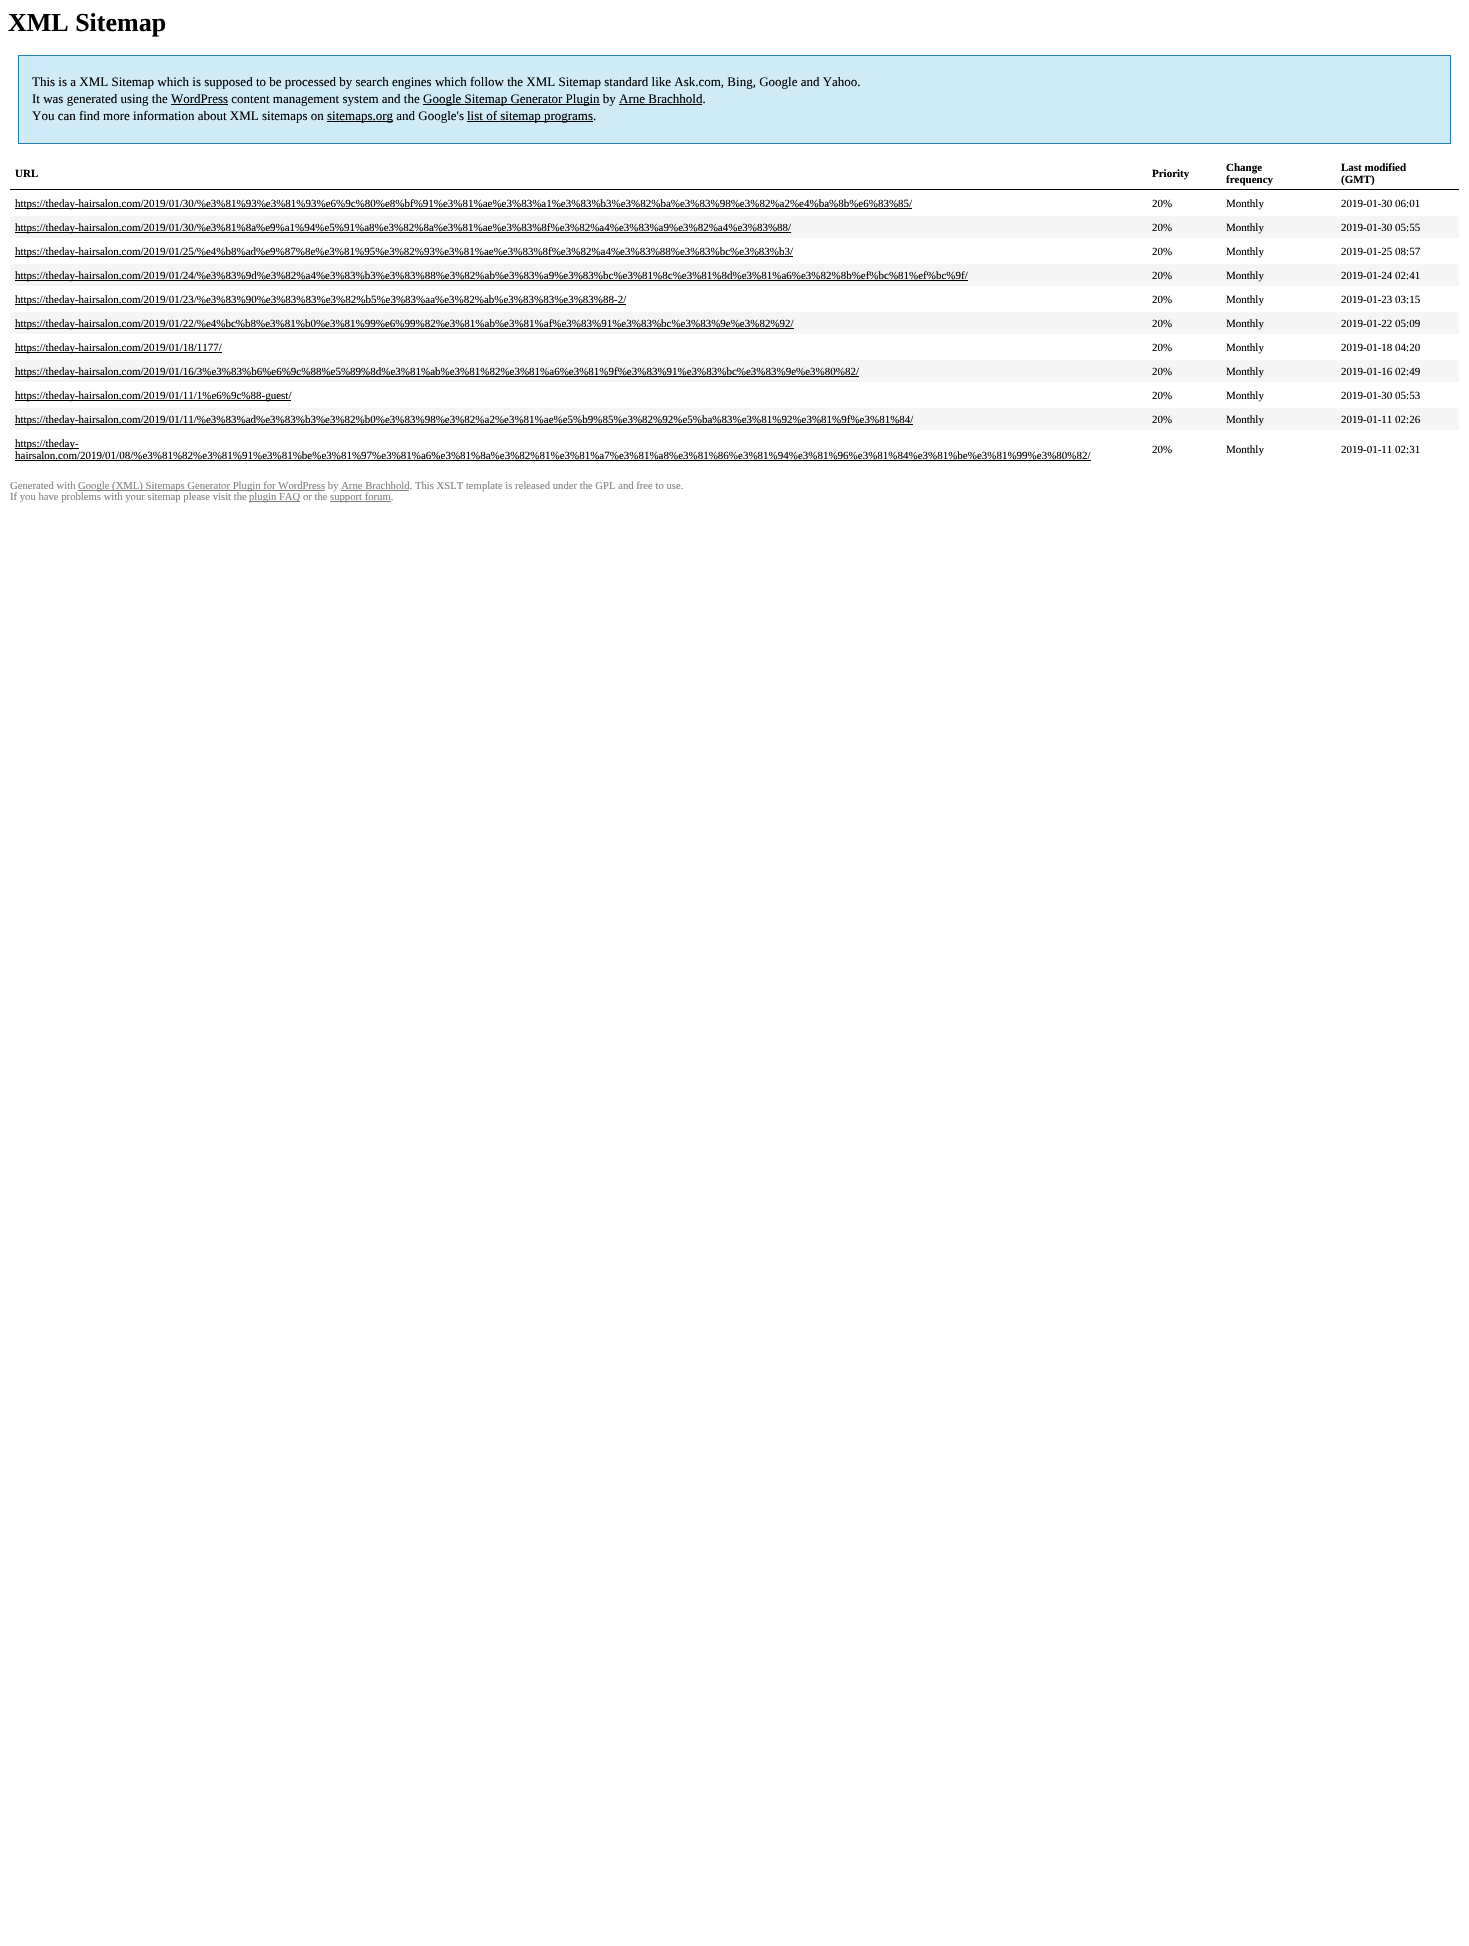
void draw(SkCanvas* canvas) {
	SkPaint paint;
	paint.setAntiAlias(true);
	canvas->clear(0xffffffff);
	SkFont f1(fontMgr->matchFamilyStyle("Liberation Serif", SkFontStyle::Bold()), 26);
	f1.setSubpixel(true);
	paint.setColor(0xff000000);
	canvas->drawString("XML Sitemap", 8, 31, f1, paint);
	paint.setColor(0xffcfebf7);
	canvas->drawRect(SkRect::MakeXYWH(18.5, 55.5, 1432, 88), paint);
	paint.setStroke(true);
	paint.setStrokeWidth(1);
	paint.setColor(0xff2580b2);
	canvas->drawRect(SkRect::MakeXYWH(18.5, 55.5, 1432, 88), paint);
	SkFont f2(fontMgr->matchFamilyStyle("Liberation Serif", SkFontStyle::Normal()), 13);
	f2.setSubpixel(true);
	paint.setStroke(false);
	paint.setColor(0xff000000);
	canvas->drawString("This is a XML Sitemap which is supposed to be processed by search engines which follow the XML Sitemap standard like Ask.com, Bing, Google and Yahoo.", 32, 86, f2, paint);
	canvas->drawString("It was generated using the WordPress content management system and the", 32, 103, f2, paint);
	canvas->drawRect(SkRect::MakeXYWH(423, 104, 177, 1), paint);
	canvas->drawString("Google Sitemap Generator Plugin by Arne Brachhold.", 423, 103, f2, paint);
	canvas->drawRect(SkRect::MakeXYWH(171, 104, 57, 1), paint);
	canvas->drawRect(SkRect::MakeXYWH(619, 104, 83, 1), paint);
	canvas->drawString("You can find more information about XML sitemaps on", 32, 120, f2, paint);
	canvas->drawRect(SkRect::MakeXYWH(327, 121, 66, 1), paint);
	canvas->drawString("sitemaps.org and Google's", 327, 120, f2, paint);
	canvas->drawRect(SkRect::MakeXYWH(467, 121, 126, 1), paint);
	canvas->drawString("list of sitemap programs.", 467, 120, f2, paint);
	canvas->drawRect(SkRect::MakeXYWH(10, 189, 1449, 1), paint);
	SkFont f3(fontMgr->matchFamilyStyle("Liberation Serif", SkFontStyle::Bold()), 11);
	f3.setSubpixel(true);
	canvas->drawString("URL", 15, 177, f3, paint);
	canvas->drawString("Priority", 1152, 177, f3, paint);
	canvas->drawString("Change", 1226, 171, f3, paint);
	canvas->drawString("frequency", 1226, 183, f3, paint);
	canvas->drawString("Last modified", 1341, 171, f3, paint);
	canvas->drawString("(GMT)", 1341, 183, f3, paint);
	canvas->drawRect(SkRect::MakeXYWH(15, 208, 897, 1), paint);
	SkFont f4(fontMgr->matchFamilyStyle("Liberation Serif", SkFontStyle::Normal()), 11);
	f4.setSubpixel(true);
	canvas->drawString("https://theday-hairsalon.com/2019/01/30/%e3%81%93%e3%81%93%e6%9c%80%e8%bf%91%e3%81%ae%e3%83%a1%e3%83%b3%e3%82%ba%e3%83%98%e3%82%a2%e4%ba%8b%e6%83%85/", 15, 207, f4, paint);
	canvas->drawString("20%", 1152, 207, f4, paint);
	canvas->drawString("Monthly", 1226, 207, f4, paint);
	canvas->drawString("2019-01-30 06:01", 1341, 207, f4, paint);
	paint.setColor(0xfff5f5f5);
	canvas->drawRect(SkRect::MakeXYWH(10, 216, 1449, 22), paint);
	paint.setColor(0xff000000);
	canvas->drawRect(SkRect::MakeXYWH(15, 232, 776, 1), paint);
	canvas->drawString("https://theday-hairsalon.com/2019/01/30/%e3%81%8a%e9%a1%94%e5%91%a8%e3%82%8a%e3%81%ae%e3%83%8f%e3%82%a4%e3%83%a9%e3%82%a4%e3%83%88/", 15, 231, f4, paint);
	canvas->drawString("20%", 1152, 231, f4, paint);
	canvas->drawString("Monthly", 1226, 231, f4, paint);
	canvas->drawString("2019-01-30 05:55", 1341, 231, f4, paint);
	canvas->drawRect(SkRect::MakeXYWH(15, 256, 778, 1), paint);
	canvas->drawString("https://theday-hairsalon.com/2019/01/25/%e4%b8%ad%e9%87%8e%e3%81%95%e3%82%93%e3%81%ae%e3%83%8f%e3%82%a4%e3%83%88%e3%83%bc%e3%83%b3/", 15, 255, f4, paint);
	canvas->drawString("20%", 1152, 255, f4, paint);
	canvas->drawString("Monthly", 1226, 255, f4, paint);
	canvas->drawString("2019-01-25 08:57", 1341, 255, f4, paint);
	paint.setColor(0xfff5f5f5);
	canvas->drawRect(SkRect::MakeXYWH(10, 264, 1449, 22), paint);
	paint.setColor(0xff000000);
	canvas->drawRect(SkRect::MakeXYWH(15, 280, 953, 1), paint);
	canvas->drawString("https://theday-hairsalon.com/2019/01/24/%e3%83%9d%e3%82%a4%e3%83%b3%e3%83%88%e3%82%ab%e3%83%a9%e3%83%bc%e3%81%8c%e3%81%8d%e3%81%a6%e3%82%8b%ef%bc%81%ef%bc%9f/", 15, 279, f4, paint);
	canvas->drawString("20%", 1152, 279, f4, paint);
	canvas->drawString("Monthly", 1226, 279, f4, paint);
	canvas->drawString("2019-01-24 02:41", 1341, 279, f4, paint);
	canvas->drawRect(SkRect::MakeXYWH(15, 304, 611, 1), paint);
	canvas->drawString("https://theday-hairsalon.com/2019/01/23/%e3%83%90%e3%83%83%e3%82%b5%e3%83%aa%e3%82%ab%e3%83%83%e3%83%88-2/", 15, 303, f4, paint);
	canvas->drawString("20%", 1152, 303, f4, paint);
	canvas->drawString("Monthly", 1226, 303, f4, paint);
	canvas->drawString("2019-01-23 03:15", 1341, 303, f4, paint);
	paint.setColor(0xfff5f5f5);
	canvas->drawRect(SkRect::MakeXYWH(10, 312, 1449, 22), paint);
	paint.setColor(0xff000000);
	canvas->drawRect(SkRect::MakeXYWH(15, 328, 779, 1), paint);
	canvas->drawString("https://theday-hairsalon.com/2019/01/22/%e4%bc%b8%e3%81%b0%e3%81%99%e6%99%82%e3%81%ab%e3%81%af%e3%83%91%e3%83%bc%e3%83%9e%e3%82%92/", 15, 327, f4, paint);
	canvas->drawString("20%", 1152, 327, f4, paint);
	canvas->drawString("Monthly", 1226, 327, f4, paint);
	canvas->drawString("2019-01-22 05:09", 1341, 327, f4, paint);
	canvas->drawRect(SkRect::MakeXYWH(15, 352, 207, 1), paint);
	canvas->drawString("https://theday-hairsalon.com/2019/01/18/1177/", 15, 351, f4, paint);
	canvas->drawString("20%", 1152, 351, f4, paint);
	canvas->drawString("Monthly", 1226, 351, f4, paint);
	canvas->drawString("2019-01-18 04:20", 1341, 351, f4, paint);
	paint.setColor(0xfff5f5f5);
	canvas->drawRect(SkRect::MakeXYWH(10, 360, 1449, 22), paint);
	paint.setColor(0xff000000);
	canvas->drawRect(SkRect::MakeXYWH(15, 376, 844, 1), paint);
	canvas->drawString("https://theday-hairsalon.com/2019/01/16/3%e3%83%b6%e6%9c%88%e5%89%8d%e3%81%ab%e3%81%82%e3%81%a6%e3%81%9f%e3%83%91%e3%83%bc%e3%83%9e%e3%80%82/", 15, 375, f4, paint);
	canvas->drawString("20%", 1152, 375, f4, paint);
	canvas->drawString("Monthly", 1226, 375, f4, paint);
	canvas->drawString("2019-01-16 02:49", 1341, 375, f4, paint);
	canvas->drawRect(SkRect::MakeXYWH(15, 400, 276, 1), paint);
	canvas->drawString("https://theday-hairsalon.com/2019/01/11/1%e6%9c%88-guest/", 15, 399, f4, paint);
	canvas->drawString("20%", 1152, 399, f4, paint);
	canvas->drawString("Monthly", 1226, 399, f4, paint);
	canvas->drawString("2019-01-30 05:53", 1341, 399, f4, paint);
	paint.setColor(0xfff5f5f5);
	canvas->drawRect(SkRect::MakeXYWH(10, 408, 1449, 22), paint);
	paint.setColor(0xff000000);
	canvas->drawRect(SkRect::MakeXYWH(15, 424, 898, 1), paint);
	canvas->drawString("https://theday-hairsalon.com/2019/01/11/%e3%83%ad%e3%83%b3%e3%82%b0%e3%83%98%e3%82%a2%e3%81%ae%e5%b9%85%e3%82%92%e5%ba%83%e3%81%92%e3%81%9f%e3%81%84/", 15, 423, f4, paint);
	canvas->drawString("20%", 1152, 423, f4, paint);
	canvas->drawString("Monthly", 1226, 423, f4, paint);
	canvas->drawString("2019-01-11 02:26", 1341, 423, f4, paint);
	canvas->drawRect(SkRect::MakeXYWH(15, 448, 64, 1), paint);
	canvas->drawString("https://theday-", 15, 447, f4, paint);
	canvas->drawString("hairsalon.com/2019/01/08/%e3%81%82%e3%81%91%e3%81%be%e3%81%97%e3%81%a6%e3%81%8a%e3%82%81%e3%81%a7%e3%81%a8%e3%81%86%e3%81%94%e3%81%96%e3%81%84%e3%81%be%e3%81%99%e3%80%82/", 15, 459, f4, paint);
	canvas->drawRect(SkRect::MakeXYWH(15, 460, 1076, 1), paint);
	canvas->drawString("20%", 1152, 453, f4, paint);
	canvas->drawString("Monthly", 1226, 453, f4, paint);
	canvas->drawString("2019-01-11 02:31", 1341, 453, f4, paint);
	SkFont f5(fontMgr->matchFamilyStyle("Liberation Serif", SkFontStyle::Normal()), 10.67);
	f5.setSubpixel(true);
	paint.setColor(0xff808080);
	canvas->drawString("Generated with", 10, 489, f5, paint);
	canvas->drawRect(SkRect::MakeXYWH(78, 490, 247, 1), paint);
	canvas->drawString("Google (XML) Sitemaps Generator Plugin for WordPress by Arne Brachhold. This XSLT template is released under the GPL and free to use.", 78, 489, f5, paint);
	canvas->drawRect(SkRect::MakeXYWH(341, 490, 68, 1), paint);
	canvas->drawString("If you have problems with your sitemap please visit the", 10, 500, f5, paint);
	canvas->drawRect(SkRect::MakeXYWH(249, 501, 51, 1), paint);
	canvas->drawString("plugin FAQ or the", 249, 500, f5, paint);
	canvas->drawRect(SkRect::MakeXYWH(330, 501, 61, 1), paint);
	canvas->drawString("support forum.", 330, 500, f5, paint);
}
